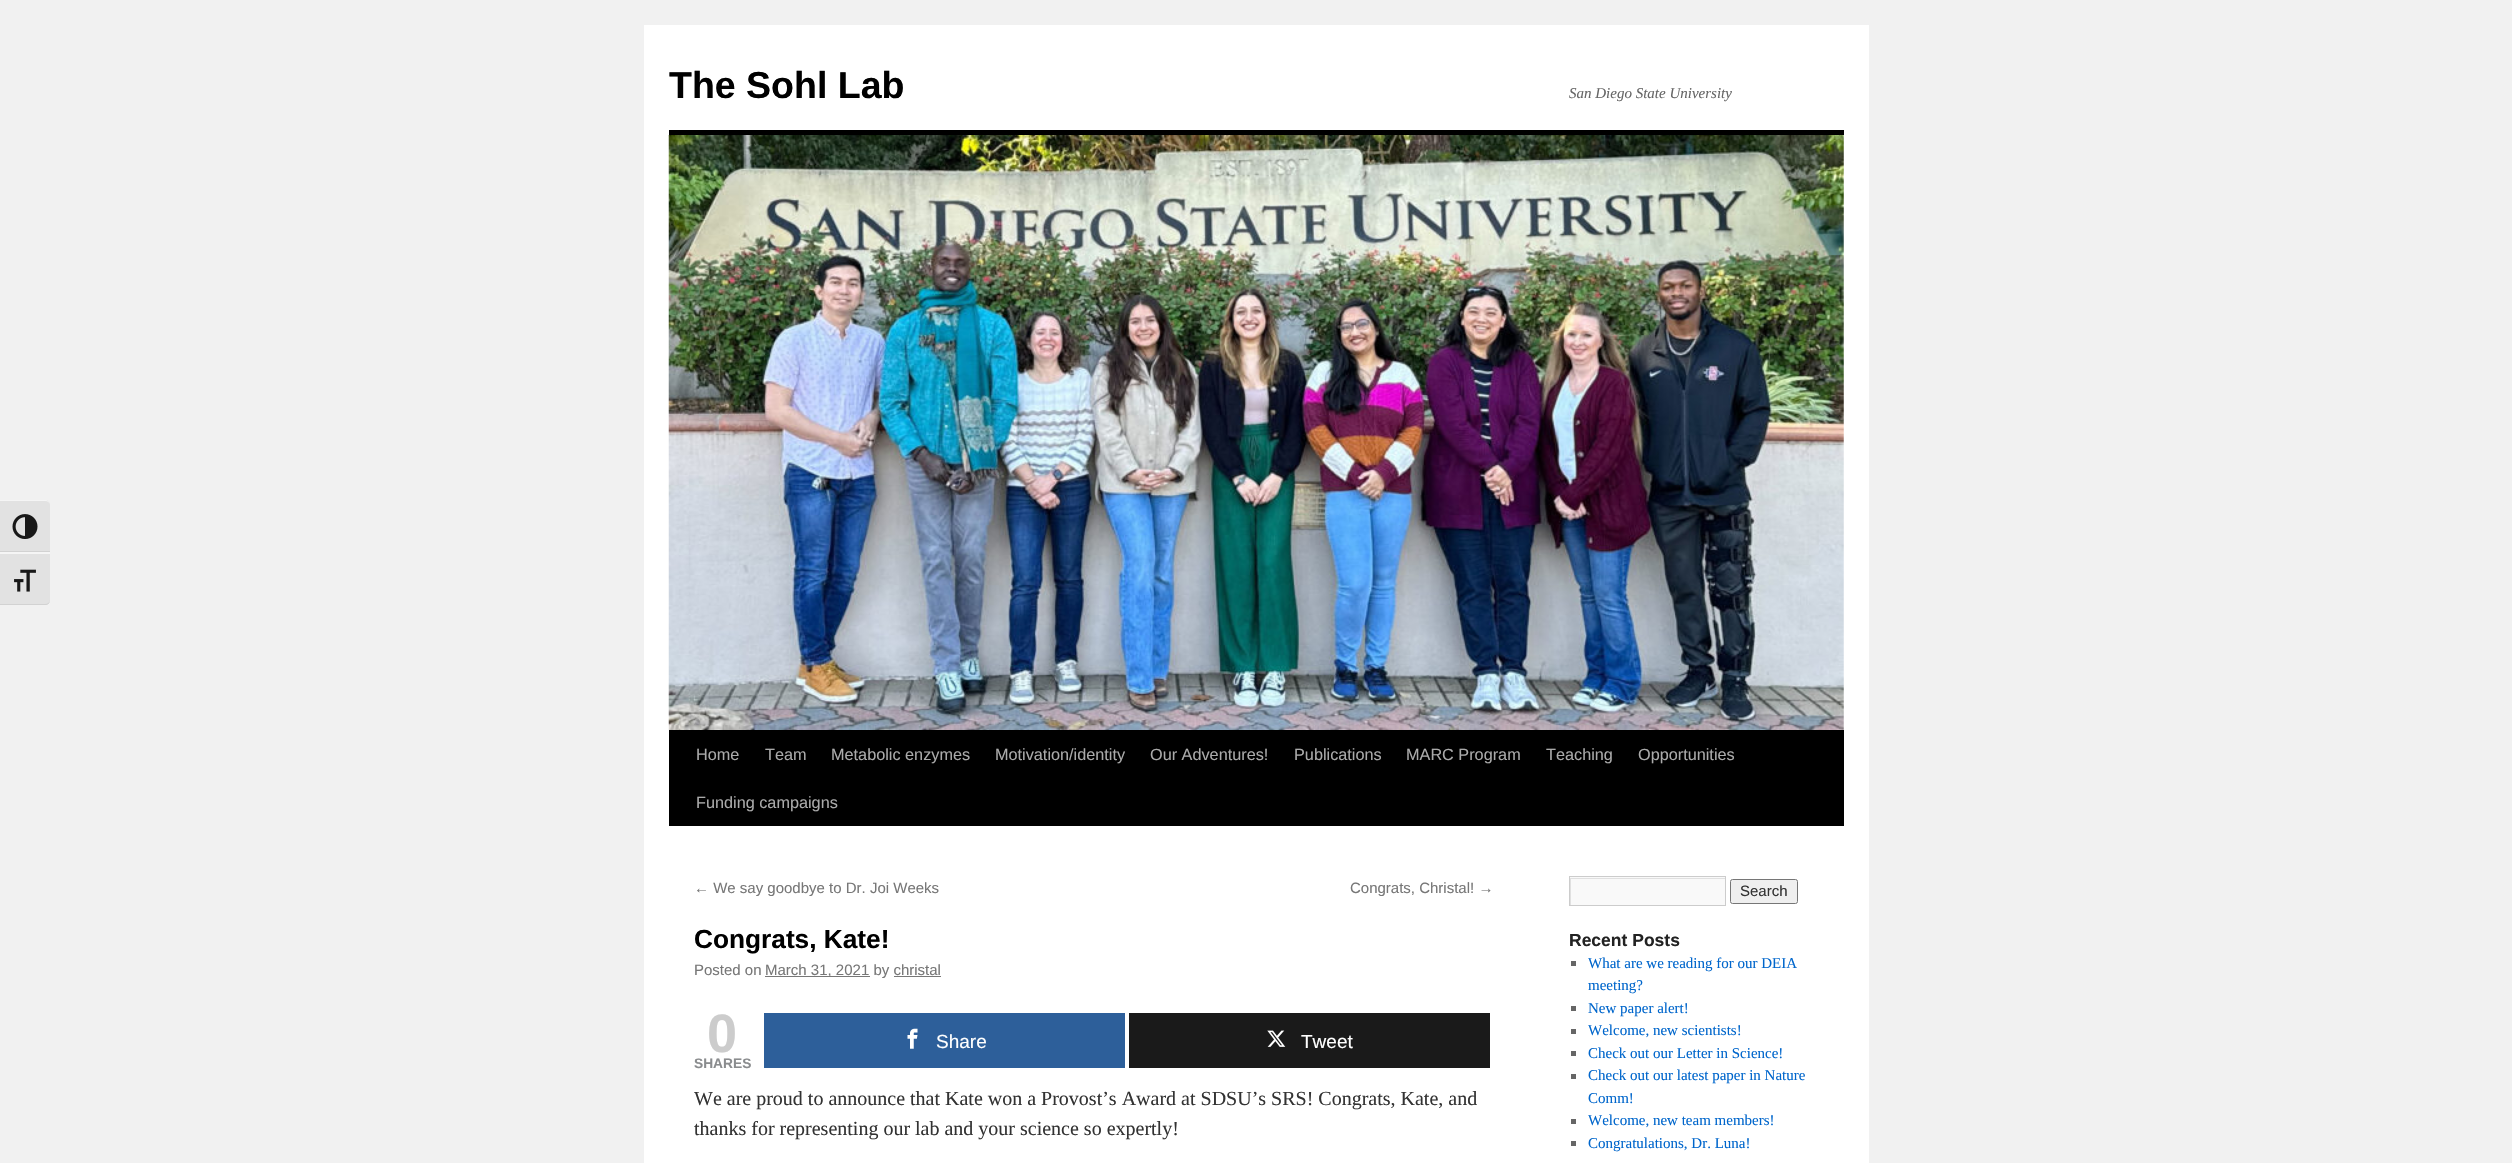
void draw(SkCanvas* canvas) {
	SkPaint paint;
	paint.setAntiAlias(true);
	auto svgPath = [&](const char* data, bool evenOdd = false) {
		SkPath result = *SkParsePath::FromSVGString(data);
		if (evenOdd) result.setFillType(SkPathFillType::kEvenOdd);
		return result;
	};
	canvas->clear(0xfff1f1f1);
	paint.setColor(0xffe2e2e2);
	canvas->drawPath(svgPath("M0 500H45C48 500 50 502 50 505V553H0Z"), paint);
	paint.setColor(0xfff5f5f5);
	canvas->drawPath(svgPath("M0 500V501H45C48 501 50 503 50 505C50 502 48 500 45 500Z"), paint);
	paint.setColor(0xffd2d2d2);
	canvas->drawRect(SkRect::MakeXYWH(0, 551, 50, 1), paint);
	canvas->drawImageRect(SkImages::DeferredFromEncodedData(SkData::MakeFromFileName("img1.png")), SkRect::MakeXYWH(12, 514, 26, 25), SkSamplingOptions());
	paint.setColor(0xffe2e2e2);
	canvas->drawPath(svgPath("M0 553H50V600C50 603 48 605 45 605H0Z"), paint);
	paint.setColor(0xfff5f5f5);
	canvas->drawRect(SkRect::MakeXYWH(0, 552, 50, 2), paint);
	paint.setColor(0xffd2d2d2);
	canvas->drawPath(svgPath("M0 604V605H45C48 605 50 603 50 600C50 602 48 604 45 604Z"), paint);
	canvas->drawImageRect(SkImages::DeferredFromEncodedData(SkData::MakeFromFileName("img2.png")), SkRect::MakeXYWH(14, 569, 22, 23), SkSamplingOptions());
	paint.setColor(0xffffffff);
	canvas->drawRect(SkRect::MakeXYWH(644, 25, 1225, 1138), paint);
	SkFont f1(fontMgr->matchFamilyStyle("Liberation Sans", SkFontStyle::Bold()), 37.5);
	f1.setSubpixel(true);
	paint.setColor(0xff000000);
	canvas->drawString("The Sohl Lab", 669, 98, f1, paint);
	SkFont f2(fontMgr->matchFamilyStyle("Liberation Serif", SkFontStyle::Italic()), 15);
	f2.setSubpixel(true);
	paint.setColor(0xff666666);
	canvas->drawString("San Diego State University", 1569, 98, f2, paint);
	paint.setColor(0xff000000);
	canvas->drawRect(SkRect::MakeXYWH(669, 130, 1175, 5), paint);
	canvas->drawRect(SkRect::MakeXYWH(669, 730, 1175, 96), paint);
	canvas->drawImageRect(SkImages::DeferredFromEncodedData(SkData::MakeFromFileName("img3.png")), SkRect::MakeXYWH(668, 135, 1176, 595), SkSamplingOptions());
	SkFont f3(fontMgr->matchFamilyStyle("Liberation Sans", SkFontStyle::Normal()), 16.25);
	f3.setSubpixel(true);
	paint.setColor(0xffaaaaaa);
	canvas->drawString("Home", 696, 760, f3, paint);
	canvas->drawString("Team", 765, 760, f3, paint);
	canvas->drawString("Metabolic enzymes", 831, 760, f3, paint);
	canvas->drawString("Motivation/identity", 995, 760, f3, paint);
	canvas->drawString("Our Adventures!", 1150, 760, f3, paint);
	canvas->drawString("Publications", 1294, 760, f3, paint);
	canvas->drawString("MARC Program", 1406, 760, f3, paint);
	canvas->drawString("Teaching", 1546, 760, f3, paint);
	canvas->drawString("Opportunities", 1638, 760, f3, paint);
	canvas->drawString("Funding campaigns", 696, 808, f3, paint);
	SkFont f4(fontMgr->matchFamilyStyle("Liberation Sans", SkFontStyle::Normal()), 15);
	f4.setSubpixel(true);
	paint.setColor(0xff777777);
	canvas->drawString("← We say goodbye to Dr. Joi Weeks", 694, 893, f4, paint);
	canvas->drawString("Congrats, Christal! →", 1350, 893, f4, paint);
	SkFont f5(fontMgr->matchFamilyStyle("Liberation Sans", SkFontStyle::Bold()), 26.25);
	f5.setSubpixel(true);
	paint.setColor(0xff000000);
	canvas->drawString("Congrats, Kate!", 694, 948, f5, paint);
	paint.setColor(0xff777777);
	canvas->drawString("Posted on", 694, 975, f4, paint);
	canvas->drawRect(SkRect::MakeXYWH(765, 976, 105, 1), paint);
	canvas->drawString("March 31, 2021 by christal", 765, 975, f4, paint);
	canvas->drawRect(SkRect::MakeXYWH(894, 976, 47, 1), paint);
	SkFont f6(fontMgr->matchFamilyStyle("Liberation Sans", SkFontStyle::Bold()), 54);
	f6.setSubpixel(true);
	paint.setColor(0xffcccccc);
	canvas->drawString("0", 707, 1052, f6, paint);
	SkFont f7(fontMgr->matchFamilyStyle("Liberation Sans", SkFontStyle::Bold()), 13.75);
	f7.setSubpixel(true);
	paint.setColor(0xff8a8c8e);
	canvas->drawString("SHARES", 694, 1068, f7, paint);
	paint.setColor(0xff2d5f9a);
	canvas->drawRect(SkRect::MakeXYWH(764, 1013, 361, 55), paint);
	canvas->drawImageRect(SkImages::DeferredFromEncodedData(SkData::MakeFromFileName("img4.png")), SkRect::MakeXYWH(907, 1028, 11, 21), SkSamplingOptions());
	SkFont f8(fontMgr->matchFamilyStyle("Liberation Sans", SkFontStyle::Normal()), 19);
	f8.setSubpixel(true);
	paint.setColor(0xffffffff);
	canvas->drawString("Share", 936, 1048, f8, paint);
	paint.setColor(0xff1a1a1a);
	canvas->drawRect(SkRect::MakeXYWH(1129, 1013, 361, 55), paint);
	canvas->drawImageRect(SkImages::DeferredFromEncodedData(SkData::MakeFromFileName("img5.png")), SkRect::MakeXYWH(1267, 1030, 19, 17), SkSamplingOptions());
	paint.setColor(0xffffffff);
	canvas->drawString("Tweet", 1301, 1048, f8, paint);
	SkFont f9(fontMgr->matchFamilyStyle("Liberation Serif", SkFontStyle::Normal()), 20);
	f9.setSubpixel(true);
	paint.setColor(0xff333333);
	canvas->drawString("We are proud to announce that Kate won a Provost’s Award at SDSU’s SRS! Congrats, Kate, and", 694, 1105, f9, paint);
	canvas->drawString("thanks for representing our lab and your science so expertly!", 694, 1135, f9, paint);
	paint.setColor(0xfff9f9f9);
	canvas->drawRect(SkRect::MakeXYWH(1570, 877, 155, 28), paint);
	canvas->save();
	canvas->clipRect(SkRect::MakeXYWH(1570, 878, 155, 27));
	paint.setColor(0xffe0e0e0);
	canvas->drawPath(svgPath("M1446 754H1849V1029H1446ZM1571 879H1726V906H1571Z", true), paint);
	canvas->restore();
	paint.setStroke(true);
	paint.setStrokeWidth(1);
	paint.setColor(0xffcccccc);
	canvas->drawRect(SkRect::MakeXYWH(1569.5, 876.5, 156, 29), paint);
	paint.setStroke(false);
	paint.setColor(0xffefefef);
	canvas->drawRoundRect(SkRect::MakeXYWH(1730.5, 879.5, 67, 24), 2, 2, paint);
	paint.setStroke(true);
	paint.setColor(0xff767676);
	canvas->drawRoundRect(SkRect::MakeXYWH(1730.5, 879.5, 67, 24), 2, 2, paint);
	paint.setStroke(false);
	paint.setColor(0xff333333);
	canvas->drawString("Search", 1740, 896, f4, paint);
	SkFont f10(fontMgr->matchFamilyStyle("Liberation Sans", SkFontStyle::Bold()), 17.5);
	f10.setSubpixel(true);
	paint.setColor(0xff222222);
	canvas->drawString("Recent Posts", 1569, 946, f10, paint);
	paint.setColor(0xff666666);
	canvas->drawRect(SkRect::MakeXYWH(1571, 961, 5, 5), paint);
	SkFont f11(fontMgr->matchFamilyStyle("Liberation Serif", SkFontStyle::Normal()), 15);
	f11.setSubpixel(true);
	paint.setColor(0xff0066cc);
	canvas->drawString("What are we reading for our DEIA", 1588, 968, f11, paint);
	canvas->drawString("meeting?", 1588, 990, f11, paint);
	paint.setColor(0xff666666);
	canvas->drawRect(SkRect::MakeXYWH(1571, 1006, 5, 5), paint);
	paint.setColor(0xff0066cc);
	canvas->drawString("New paper alert!", 1588, 1013, f11, paint);
	paint.setColor(0xff666666);
	canvas->drawRect(SkRect::MakeXYWH(1571, 1029, 5, 5), paint);
	paint.setColor(0xff0066cc);
	canvas->drawString("Welcome, new scientists!", 1588, 1035, f11, paint);
	paint.setColor(0xff666666);
	canvas->drawRect(SkRect::MakeXYWH(1571, 1051, 5, 5), paint);
	paint.setColor(0xff0066cc);
	canvas->drawString("Check out our Letter in Science!", 1588, 1058, f11, paint);
	paint.setColor(0xff666666);
	canvas->drawRect(SkRect::MakeXYWH(1571, 1074, 5, 5), paint);
	paint.setColor(0xff0066cc);
	canvas->drawString("Check out our latest paper in Nature", 1588, 1080, f11, paint);
	canvas->drawString("Comm!", 1588, 1103, f11, paint);
	paint.setColor(0xff666666);
	canvas->drawRect(SkRect::MakeXYWH(1571, 1119, 5, 5), paint);
	paint.setColor(0xff0066cc);
	canvas->drawString("Welcome, new team members!", 1588, 1125, f11, paint);
	paint.setColor(0xff666666);
	canvas->drawRect(SkRect::MakeXYWH(1571, 1141, 5, 5), paint);
	paint.setColor(0xff0066cc);
	canvas->drawString("Congratulations, Dr. Luna!", 1588, 1148, f11, paint);
}
